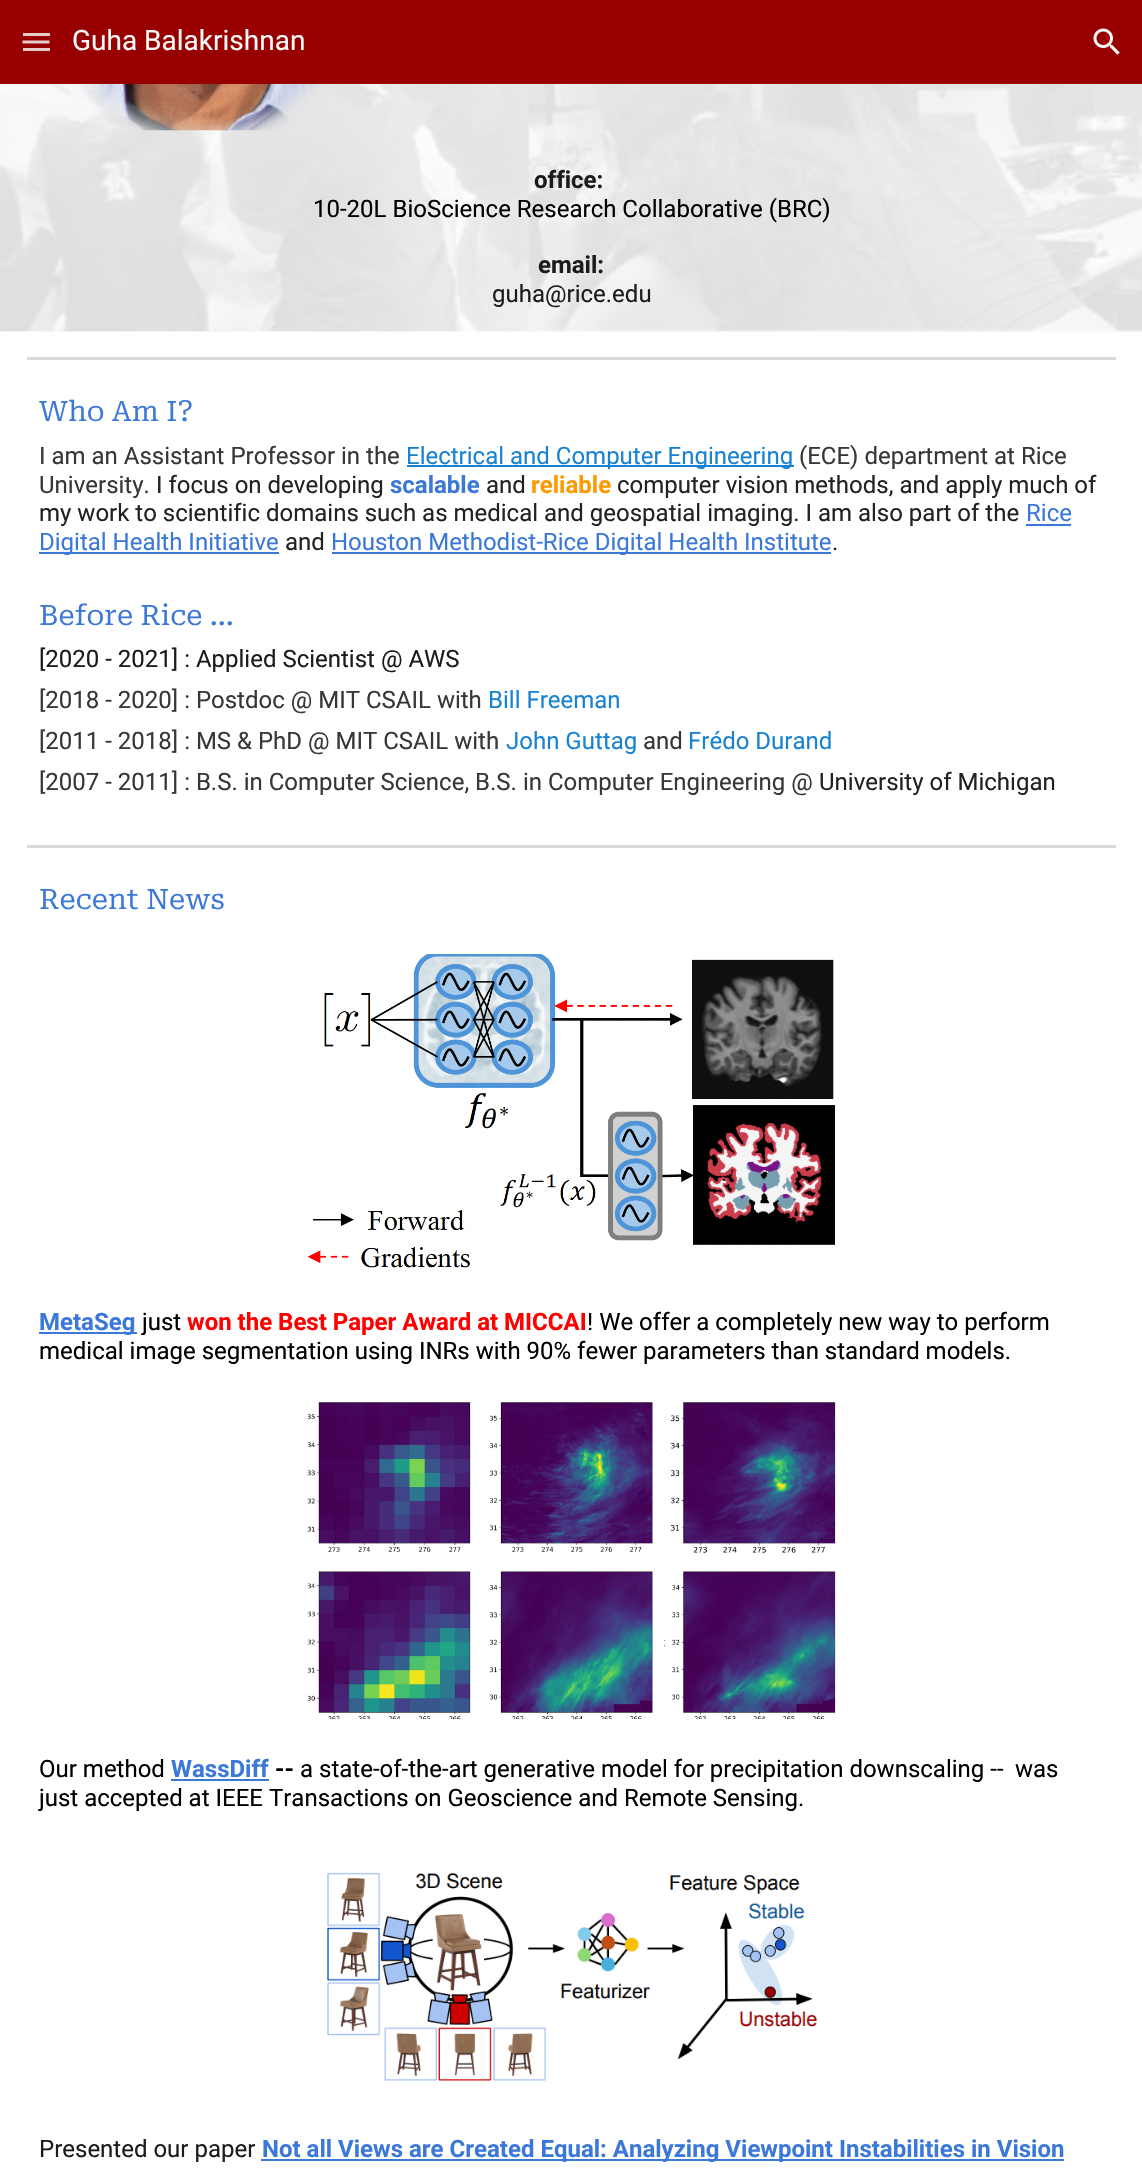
void draw(SkCanvas* canvas) {
	SkPaint paint;
	paint.setAntiAlias(true);
	auto svgPath = [&](const char* data, bool evenOdd = false) {
		SkPath result = *SkParsePath::FromSVGString(data);
		if (evenOdd) result.setFillType(SkPathFillType::kEvenOdd);
		return result;
	};
	canvas->clear(0xffffffff);
	paint.setColor(0xff980000);
	canvas->drawRect(SkRect::MakeXYWH(0, 0, 1142, 84), paint);
	paint.setColor(0xffe8cccc);
	canvas->drawRect(SkRect::MakeXYWH(23, 33, 27, 3), paint);
	paint.setStroke(true);
	paint.setStrokeWidth(3);
	canvas->drawPath(svgPath("M22.5 42H49.5"), paint);
	paint.setStroke(false);
	canvas->drawRect(SkRect::MakeXYWH(23, 48, 27, 3), paint);
	SkFont f1(fontMgr->matchFamilyStyle("Roboto", SkFontStyle::Normal()), 28);
	f1.setSubpixel(true);
	paint.setColor(0xfff9f9f9);
	canvas->drawString("Guha Balakrishnan", 72, 50, f1, paint);
	canvas->drawImageRect(SkImages::DeferredFromEncodedData(SkData::MakeFromFileName("img1.png")), SkRect::MakeXYWH(1093, 28, 27, 27), SkSamplingOptions());
	canvas->drawImageRect(SkImages::DeferredFromEncodedData(SkData::MakeFromFileName("img2.png")), SkRect::MakeXYWH(0, 84, 1142, 248), SkSamplingOptions());
	canvas->drawImageRect(SkImages::DeferredFromEncodedData(SkData::MakeFromFileName("img3.png")), SkRect::MakeXYWH(71, 84, 257, 47), SkSamplingOptions());
	SkFont f2(fontMgr->matchFamilyStyle("Roboto", SkFontStyle::Bold()), 24);
	f2.setSubpixel(true);
	paint.setColor(0xff1c1c1c);
	canvas->drawString("office:", 534, 188, f2, paint);
	SkFont f3(fontMgr->matchFamilyStyle("Roboto", SkFontStyle::Normal()), 24);
	f3.setSubpixel(true);
	paint.setColor(0xff000000);
	canvas->drawString("10-20L BioScience Research Collaborative (BRC)", 313, 217, f3, paint);
	paint.setColor(0xff1c1c1c);
	canvas->drawString("email:", 538, 273, f2, paint);
	canvas->drawString("guha@rice.edu", 492, 302, f3, paint);
	paint.setColor(0xffd9d9d9);
	canvas->drawRect(SkRect::MakeXYWH(27, 357, 1089, 3), paint);
	SkFont f4(fontMgr->matchFamilyStyle("Roboto Serif", SkFontStyle::Normal()), 28);
	f4.setSubpixel(true);
	paint.setColor(0xff3c78d8);
	canvas->drawString("Who Am I?", 39, 421, f4, paint);
	paint.setColor(0xff373737);
	canvas->drawString("I am an Assistant Professor in the", 39, 464, f3, paint);
	paint.setColor(0xff1982d1);
	canvas->drawRect(SkRect::MakeXYWH(407, 465, 387, 2), paint);
	canvas->drawString("Electrical and Computer Engineering", 406, 464, f3, paint);
	paint.setColor(0xff373737);
	canvas->drawString("(ECE) department at Rice", 799, 464, f3, paint);
	canvas->drawString("University.", 39, 493, f3, paint);
	paint.setColor(0xff222222);
	canvas->drawString("I focus on developing", 156, 493, f3, paint);
	paint.setColor(0xff3c78d8);
	canvas->drawString("scalable", 390, 493, f2, paint);
	paint.setColor(0xff222222);
	canvas->drawString("and", 486, 493, f3, paint);
	paint.setColor(0xffff9900);
	canvas->drawString("reliable", 531, 493, f2, paint);
	paint.setColor(0xff222222);
	canvas->drawString("computer vision methods, and apply much of", 617, 493, f3, paint);
	canvas->drawString("my work to scientific domains such as medical and geospatial imaging. I am also part of the", 39, 521, f3, paint);
	paint.setColor(0xff3c78d8);
	canvas->drawString("Rice", 1026, 521, f3, paint);
	canvas->drawRect(SkRect::MakeXYWH(1026, 524, 45, 2), paint);
	canvas->drawRect(SkRect::MakeXYWH(39, 552, 240, 2), paint);
	canvas->drawString("Digital Health Initiative", 39, 550, f3, paint);
	paint.setColor(0xff222222);
	canvas->drawString("and", 285, 550, f3, paint);
	paint.setColor(0xff3c78d8);
	canvas->drawRect(SkRect::MakeXYWH(332, 552, 499, 2), paint);
	canvas->drawString("Houston Methodist-Rice Digital Health Institute", 331, 550, f3, paint);
	paint.setColor(0xff222222);
	canvas->drawString(".", 832, 550, f3, paint);
	paint.setColor(0xff3c78d8);
	canvas->drawString("Before Rice ...", 39, 625, f4, paint);
	paint.setColor(0xff1c1c1c);
	canvas->drawString("[2020 - 2021] : Applied Scientist @ AWS", 39, 667, f3, paint);
	paint.setColor(0xff373737);
	canvas->drawString("[2018 - 2020] : Postdoc @ MIT CSAIL with", 39, 708, f3, paint);
	paint.setColor(0xff1982d1);
	canvas->drawString("Bill Freeman", 488, 708, f3, paint);
	paint.setColor(0xff373737);
	canvas->drawString("[2011 - 2018] : MS & PhD @ MIT CSAIL with", 39, 749, f3, paint);
	paint.setColor(0xff1982d1);
	canvas->drawString("John Guttag", 506, 749, f3, paint);
	paint.setColor(0xff373737);
	canvas->drawString("and", 643, 749, f3, paint);
	paint.setColor(0xff1982d1);
	canvas->drawString("Frédo Durand", 688, 749, f3, paint);
	paint.setColor(0xff373737);
	canvas->drawString("[2007 - 2011] : B.S. in Computer Science, B.S. in Computer Engineering @", 39, 790, f3, paint);
	paint.setColor(0xff222222);
	canvas->drawString("University of Michigan", 819, 790, f3, paint);
	paint.setColor(0xffd9d9d9);
	canvas->drawRect(SkRect::MakeXYWH(27, 845, 1089, 3), paint);
	paint.setColor(0xff3c78d8);
	canvas->drawString("Recent News", 39, 909, f4, paint);
	canvas->drawImageRect(SkImages::DeferredFromEncodedData(SkData::MakeFromFileName("img4.png")), SkRect::MakeXYWH(307, 954, 528, 314), SkSamplingOptions());
	canvas->drawRect(SkRect::MakeXYWH(39, 1332, 98, 2), paint);
	canvas->drawString("MetaSeg", 39, 1330, f2, paint);
	paint.setColor(0xff000000);
	canvas->drawString("just", 142, 1330, f3, paint);
	paint.setColor(0xffff0000);
	canvas->drawString("won the Best Paper Award at MICCAI", 187, 1330, f2, paint);
	paint.setColor(0xff000000);
	canvas->drawString("! We offer a completely new way to perform", 587, 1330, f3, paint);
	canvas->drawString("medical image segmentation using INRs with 90% fewer parameters than standard models.", 39, 1359, f3, paint);
	canvas->drawImageRect(SkImages::DeferredFromEncodedData(SkData::MakeFromFileName("img5.png")), SkRect::MakeXYWH(307, 1402, 529, 317), SkSamplingOptions());
	canvas->drawString("Our method", 39, 1777, f3, paint);
	paint.setColor(0xff3c78d8);
	canvas->drawString("WassDiff", 171, 1777, f2, paint);
	canvas->drawRect(SkRect::MakeXYWH(171, 1779, 98, 2), paint);
	paint.setColor(0xff000000);
	canvas->drawString("--", 275, 1777, f2, paint);
	canvas->drawString("a state-of-the-art generative model for precipitation downscaling --", 300, 1777, f3, paint);
	canvas->drawString("was", 1015, 1777, f3, paint);
	canvas->drawString("just accepted at IEEE Transactions on Geoscience and Remote Sensing.", 39, 1806, f3, paint);
	canvas->drawImageRect(SkImages::DeferredFromEncodedData(SkData::MakeFromFileName("img6.png")), SkRect::MakeXYWH(327, 1872, 491, 209), SkSamplingOptions());
	paint.setColor(0xff1c1c1c);
	canvas->drawString("Presented our paper", 39, 2157, f3, paint);
	paint.setColor(0xff3c78d8);
	canvas->drawRect(SkRect::MakeXYWH(261, 2159, 803, 2), paint);
	canvas->drawString("Not all Views are Created Equal: Analyzing Viewpoint Instabilities in Vision", 262, 2157, f2, paint);
}
